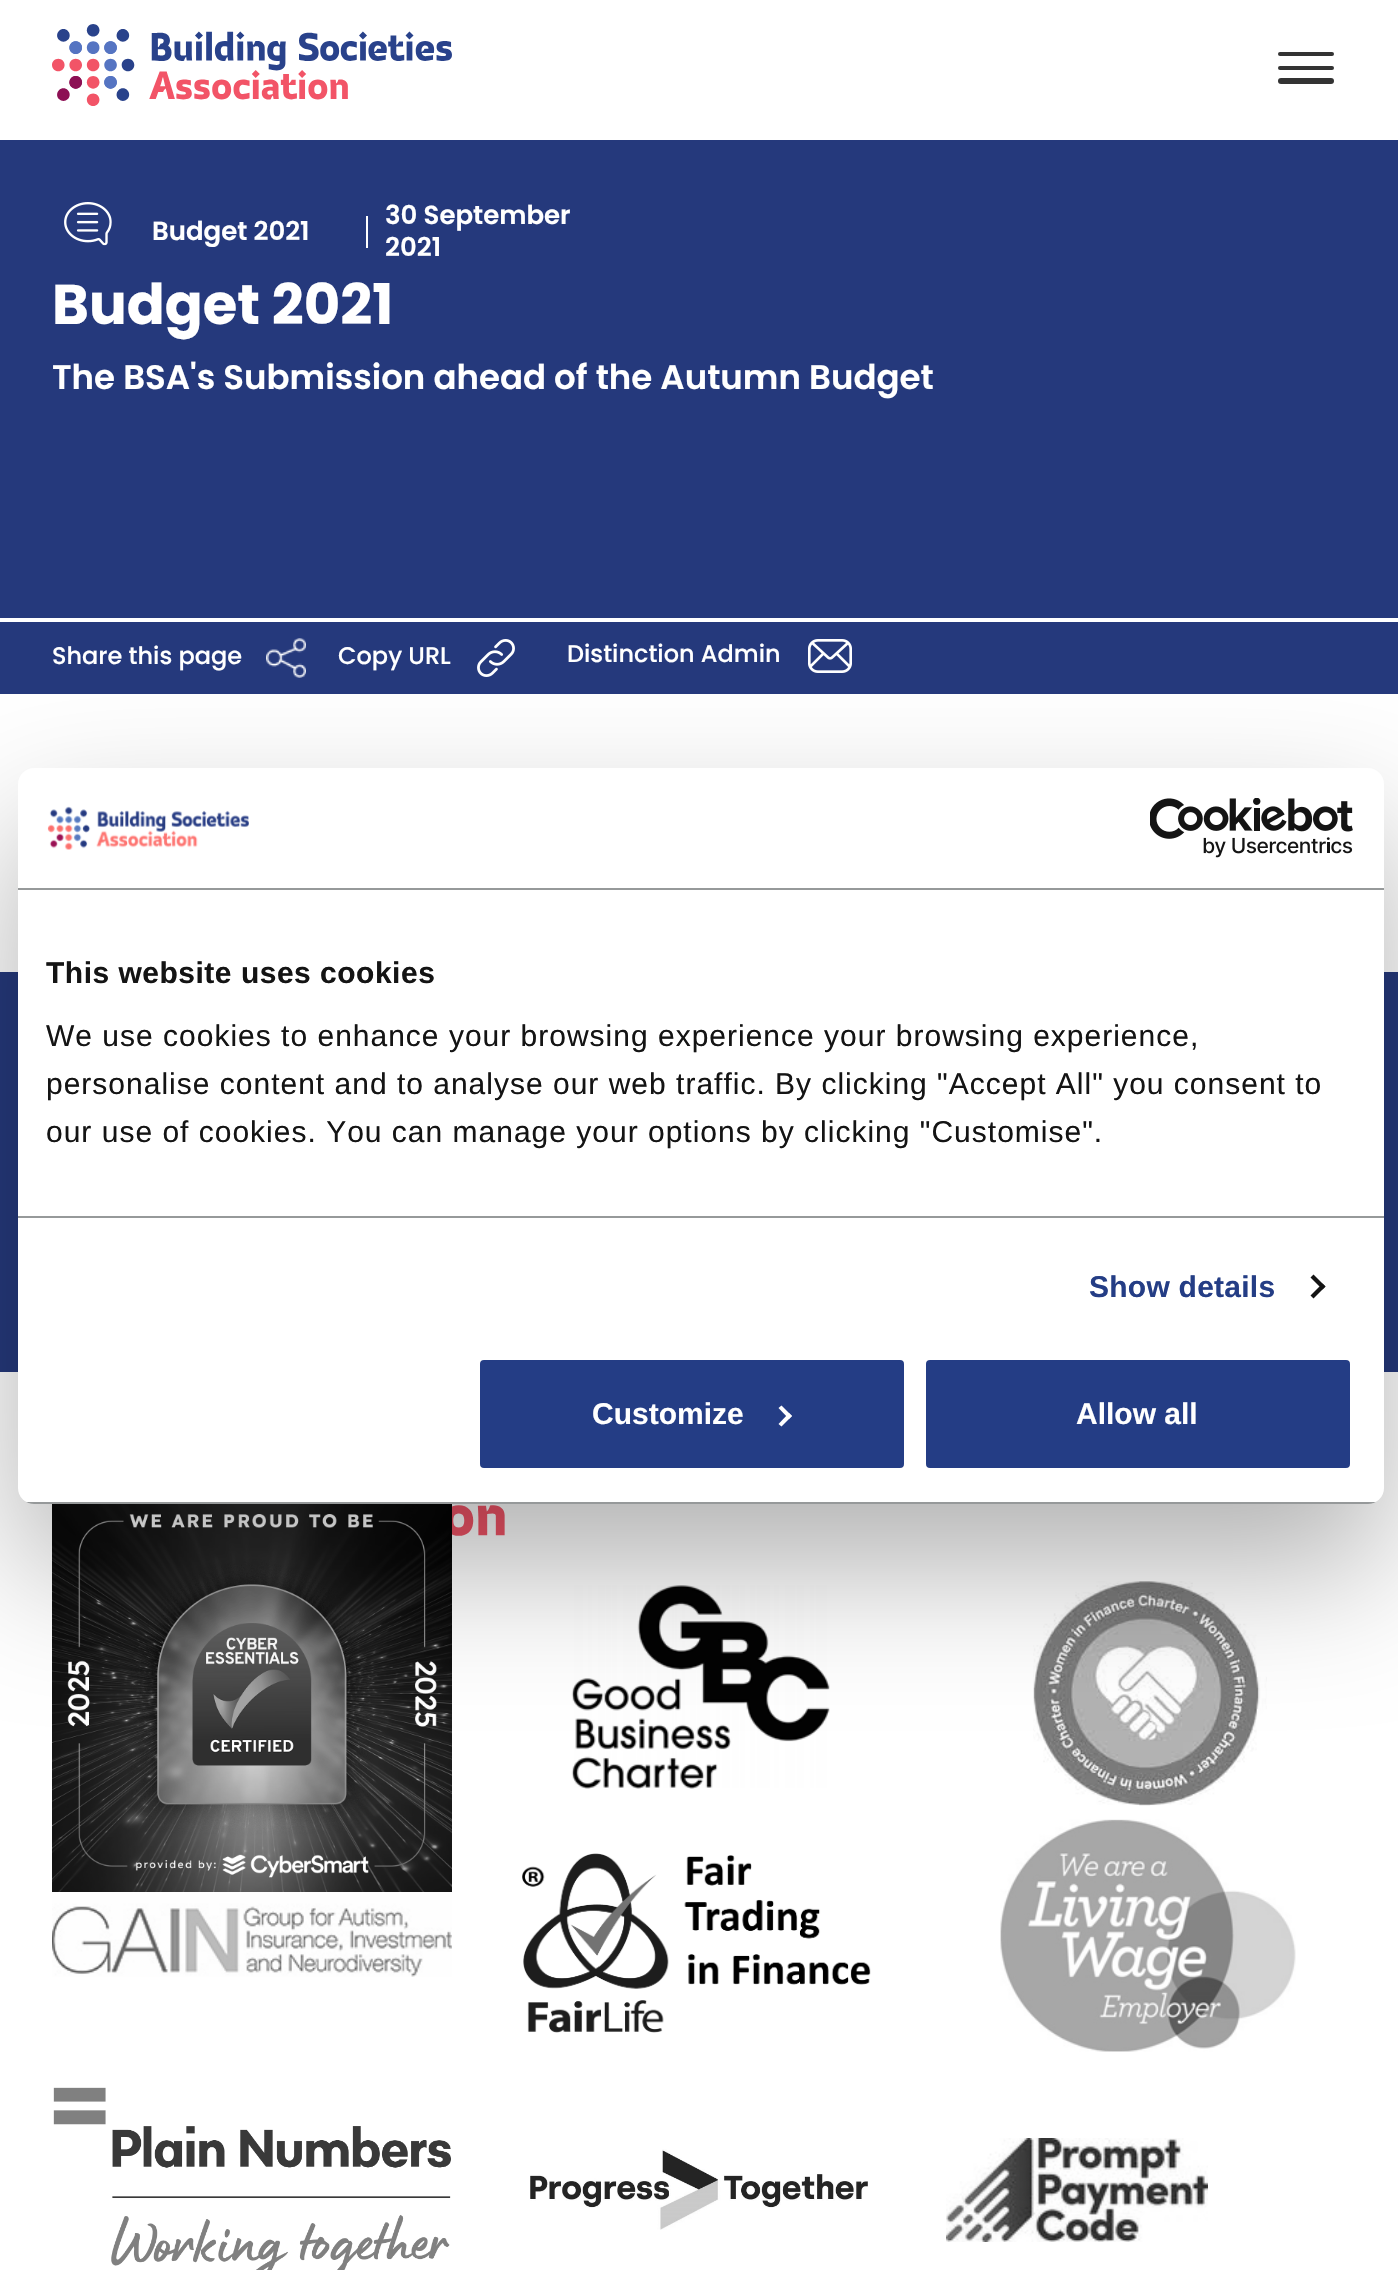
void draw(SkCanvas* canvas) {
	SkPaint paint;
	paint.setAntiAlias(true);
	auto spacedText = [&](const char* s, float x, float y, const SkFont& font, const SkPaint& ink, float letter, float word) {
		std::vector<SkGlyphID> glyphs(font.countText(s, strlen(s), SkTextEncoding::kUTF8));
		std::vector<float> xs(glyphs.size());
		font.textToGlyphs(s, strlen(s), SkTextEncoding::kUTF8, glyphs);
		font.getXPos(glyphs, xs, x);
		float extra = 0;
		for (size_t i = 0; i < glyphs.size(); i++) {
			xs[i] += extra;
			extra += letter + word * (glyphs[i] == font.unicharToGlyph(' '));
		}
		canvas->drawTextBlob(SkTextBlob::MakeFromPosHGlyphs(glyphs, xs, y, font), 0, 0, ink);
	};
	auto svgPath = [&](const char* data, bool evenOdd = false) {
		SkPath result = *SkParsePath::FromSVGString(data);
		if (evenOdd) result.setFillType(SkPathFillType::kEvenOdd);
		return result;
	};
	canvas->clear(0xffffffff);
	canvas->drawImageRect(SkImages::DeferredFromEncodedData(SkData::MakeFromFileName("img1.png")), SkRect::MakeXYWH(52, 24, 400, 82), SkSamplingOptions());
	paint.setColor(0xff333333);
	canvas->drawRoundRect(SkRect::MakeXYWH(1278, 52, 56, 4), 2, 2, paint);
	canvas->drawRoundRect(SkRect::MakeXYWH(1278, 66, 56, 4), 2, 2, paint);
	canvas->drawRoundRect(SkRect::MakeXYWH(1278, 78, 56, 6), 3, 3, paint);
	paint.setColor(0xff25397c);
	canvas->drawRect(SkRect::MakeXYWH(0, 140, 1398, 478), paint);
	canvas->drawImageRect(SkImages::DeferredFromEncodedData(SkData::MakeFromFileName("img2.png")), SkRect::MakeXYWH(64, 202, 48, 44), SkSamplingOptions());
	paint.setColor(0xffffffff);
	canvas->drawRect(SkRect::MakeXYWH(366, 216, 2, 32), paint);
	SkFont f1(fontMgr->matchFamilyStyle("Poppins", SkFontStyle(600, SkFontStyle::kNormal_Width, SkFontStyle::kUpright_Slant)), 26);
	f1.setSubpixel(true);
	canvas->drawString("Budget 2021", 152, 240, f1, paint);
	canvas->drawString("30 September", 385, 224, f1, paint);
	canvas->drawString("2021", 385, 256, f1, paint);
	SkFont f2(fontMgr->matchFamilyStyle("Poppins", SkFontStyle::Bold()), 56);
	f2.setSubpixel(true);
	canvas->drawString("Budget 2021", 52, 324, f2, paint);
	SkFont f3(fontMgr->matchFamilyStyle("Poppins", SkFontStyle(600, SkFontStyle::kNormal_Width, SkFontStyle::kUpright_Slant)), 34);
	f3.setSubpixel(true);
	canvas->drawString("The BSA's Submission ahead of the Autumn Budget", 52, 389, f3, paint);
	paint.setColor(0xff25397c);
	canvas->drawRect(SkRect::MakeXYWH(0, 622, 1398, 72), paint);
	SkFont f4(fontMgr->matchFamilyStyle("Poppins", SkFontStyle(500, SkFontStyle::kNormal_Width, SkFontStyle::kUpright_Slant)), 24);
	f4.setSubpixel(true);
	paint.setColor(0xffffffff);
	canvas->drawString("Share this page", 52, 664, f4, paint);
	canvas->drawImageRect(SkImages::DeferredFromEncodedData(SkData::MakeFromFileName("img3.png")), SkRect::MakeXYWH(266, 638, 40, 40), SkSamplingOptions());
	canvas->drawString("Copy URL", 338, 664, f4, paint);
	canvas->drawImageRect(SkImages::DeferredFromEncodedData(SkData::MakeFromFileName("img4.png")), SkRect::MakeXYWH(477, 639, 38, 38), SkSamplingOptions());
	canvas->drawString("Distinction Admin", 567, 662, f4, paint);
	canvas->drawImageRect(SkImages::DeferredFromEncodedData(SkData::MakeFromFileName("img5.png")), SkRect::MakeXYWH(808, 639, 44, 34), SkSamplingOptions());
	paint.setColor(0xff25397c);
	canvas->drawRect(SkRect::MakeXYWH(0, 972, 1398, 400), paint);
	canvas->drawImageRect(SkImages::DeferredFromEncodedData(SkData::MakeFromFileName("img6.png")), SkRect::MakeXYWH(52, 1504, 400, 388), SkSamplingOptions());
	canvas->drawImageRect(SkImages::DeferredFromEncodedData(SkData::MakeFromFileName("img7.png")), SkRect::MakeXYWH(571, 1585, 259, 204), SkSamplingOptions());
	canvas->drawImageRect(SkImages::DeferredFromEncodedData(SkData::MakeFromFileName("img8.png")), SkRect::MakeXYWH(1033, 1581, 234, 225), SkSamplingOptions());
	canvas->drawImageRect(SkImages::DeferredFromEncodedData(SkData::MakeFromFileName("img9.png")), SkRect::MakeXYWH(52, 1892, 400, 85), SkSamplingOptions());
	canvas->drawImageRect(SkImages::DeferredFromEncodedData(SkData::MakeFromFileName("img10.png")), SkRect::MakeXYWH(522, 1853, 349, 180), SkSamplingOptions());
	canvas->drawImageRect(SkImages::DeferredFromEncodedData(SkData::MakeFromFileName("img11.png")), SkRect::MakeXYWH(1000, 1819, 296, 233), SkSamplingOptions());
	canvas->drawImageRect(SkImages::DeferredFromEncodedData(SkData::MakeFromFileName("img12.png")), SkRect::MakeXYWH(53, 2087, 398, 183), SkSamplingOptions());
	canvas->drawImageRect(SkImages::DeferredFromEncodedData(SkData::MakeFromFileName("img13.png")), SkRect::MakeXYWH(530, 2149, 338, 81), SkSamplingOptions());
	canvas->drawImageRect(SkImages::DeferredFromEncodedData(SkData::MakeFromFileName("img14.png")), SkRect::MakeXYWH(946, 2138, 262, 104), SkSamplingOptions());
	canvas->drawImageRect(SkImages::DeferredFromEncodedData(SkData::MakeFromFileName("img15.png")), SkRect::MakeXYWH(452, 1505, 53, 31), SkSamplingOptions());
	paint.setColor(0x4d000000);
	paint.setMaskFilter(SkMaskFilter::MakeBlur(kNormal_SkBlurStyle, 68));
	canvas->drawRoundRect(SkRect::MakeXYWH(18, 832, 1366, 736), 16, 16, paint);
	paint.setMaskFilter(nullptr);
	paint.setColor(0xffffffff);
	canvas->drawRoundRect(SkRect::MakeXYWH(18, 768, 1366, 736), 16, 16, paint);
	paint.setColor(0xff96999a);
	canvas->drawRect(SkRect::MakeXYWH(18, 888, 1366, 2), paint);
	canvas->drawImageRect(SkImages::DeferredFromEncodedData(SkData::MakeFromFileName("img16.png")), SkRect::MakeXYWH(47, 806, 202, 44), SkSamplingOptions());
	canvas->drawImageRect(SkImages::DeferredFromEncodedData(SkData::MakeFromFileName("img17.png")), SkRect::MakeXYWH(1150, 798, 203, 60), SkSamplingOptions());
	canvas->drawRect(SkRect::MakeXYWH(18, 1216, 1366, 2), paint);
	SkFont f5(fontMgr->matchFamilyStyle("Liberation Sans", SkFontStyle::Bold()), 30);
	f5.setSubpixel(true);
	paint.setColor(0xff141414);
	spacedText("This website uses cookies", 46, 983, f5, paint, 0.5, 0);
	SkFont f6(fontMgr->matchFamilyStyle("Liberation Sans", SkFontStyle::Normal()), 30);
	f6.setSubpixel(true);
	spacedText("We use cookies to enhance your browsing experience your browsing experience,", 46, 1046, f6, paint, 1, 0);
	spacedText("personalise content and to analyse our web traffic. By clicking \"Accept All\" you consent to", 46, 1094, f6, paint, 1, 0);
	spacedText("our use of cookies. You can manage your options by clicking \"Customise\".", 46, 1142, f6, paint, 1, 0);
	paint.setColor(0xff243d85);
	spacedText("Show details", 1089, 1297, f5, paint, 0.25, 0);
	paint.setColor(0xff141414);
	canvas->drawPath(svgPath("M1313.5 1274.5L1325.5 1286.5L1322.5 1289.5L1310.5 1277.5Z"), paint);
	canvas->drawPath(svgPath("M1322.5 1283.5L1325.5 1286.5L1313.5 1298.5L1310.5 1295.5Z"), paint);
	canvas->save();
	canvas->clipPath(svgPath("M34 768H1368C1377 768 1384 775 1384 784V1488C1384 1497 1377 1504 1368 1504H34C25 1504 18 1497 18 1488V784C18 775 25 768 34 768Z"), true);
	paint.setColor(0xff96999a);
	canvas->drawRect(SkRect::MakeXYWH(18, 1502, 1366, 2), paint);
	canvas->restore();
	paint.setColor(0xff243d85);
	canvas->drawRoundRect(SkRect::MakeXYWH(478, 1358, 428, 112), 6, 6, paint);
	paint.setStroke(true);
	paint.setStrokeWidth(4);
	paint.setColor(0xffffffff);
	canvas->drawRoundRect(SkRect::MakeXYWH(478, 1358, 428, 112), 6, 6, paint);
	paint.setStroke(false);
	canvas->drawString("Customize", 592, 1424, f5, paint);
	canvas->drawPath(svgPath("M781.5 1405.5L792 1416L789 1419L778.5 1408Z"), paint);
	canvas->drawPath(svgPath("M789 1413L792 1416L781.5 1426.5L778.5 1424Z"), paint);
	paint.setColor(0xff243d85);
	canvas->drawRoundRect(SkRect::MakeXYWH(924, 1358, 428, 112), 6, 6, paint);
	paint.setStroke(true);
	paint.setColor(0xffffffff);
	canvas->drawRoundRect(SkRect::MakeXYWH(924, 1358, 428, 112), 6, 6, paint);
	paint.setStroke(false);
	canvas->drawString("Allow all", 1076, 1424, f5, paint);
}
